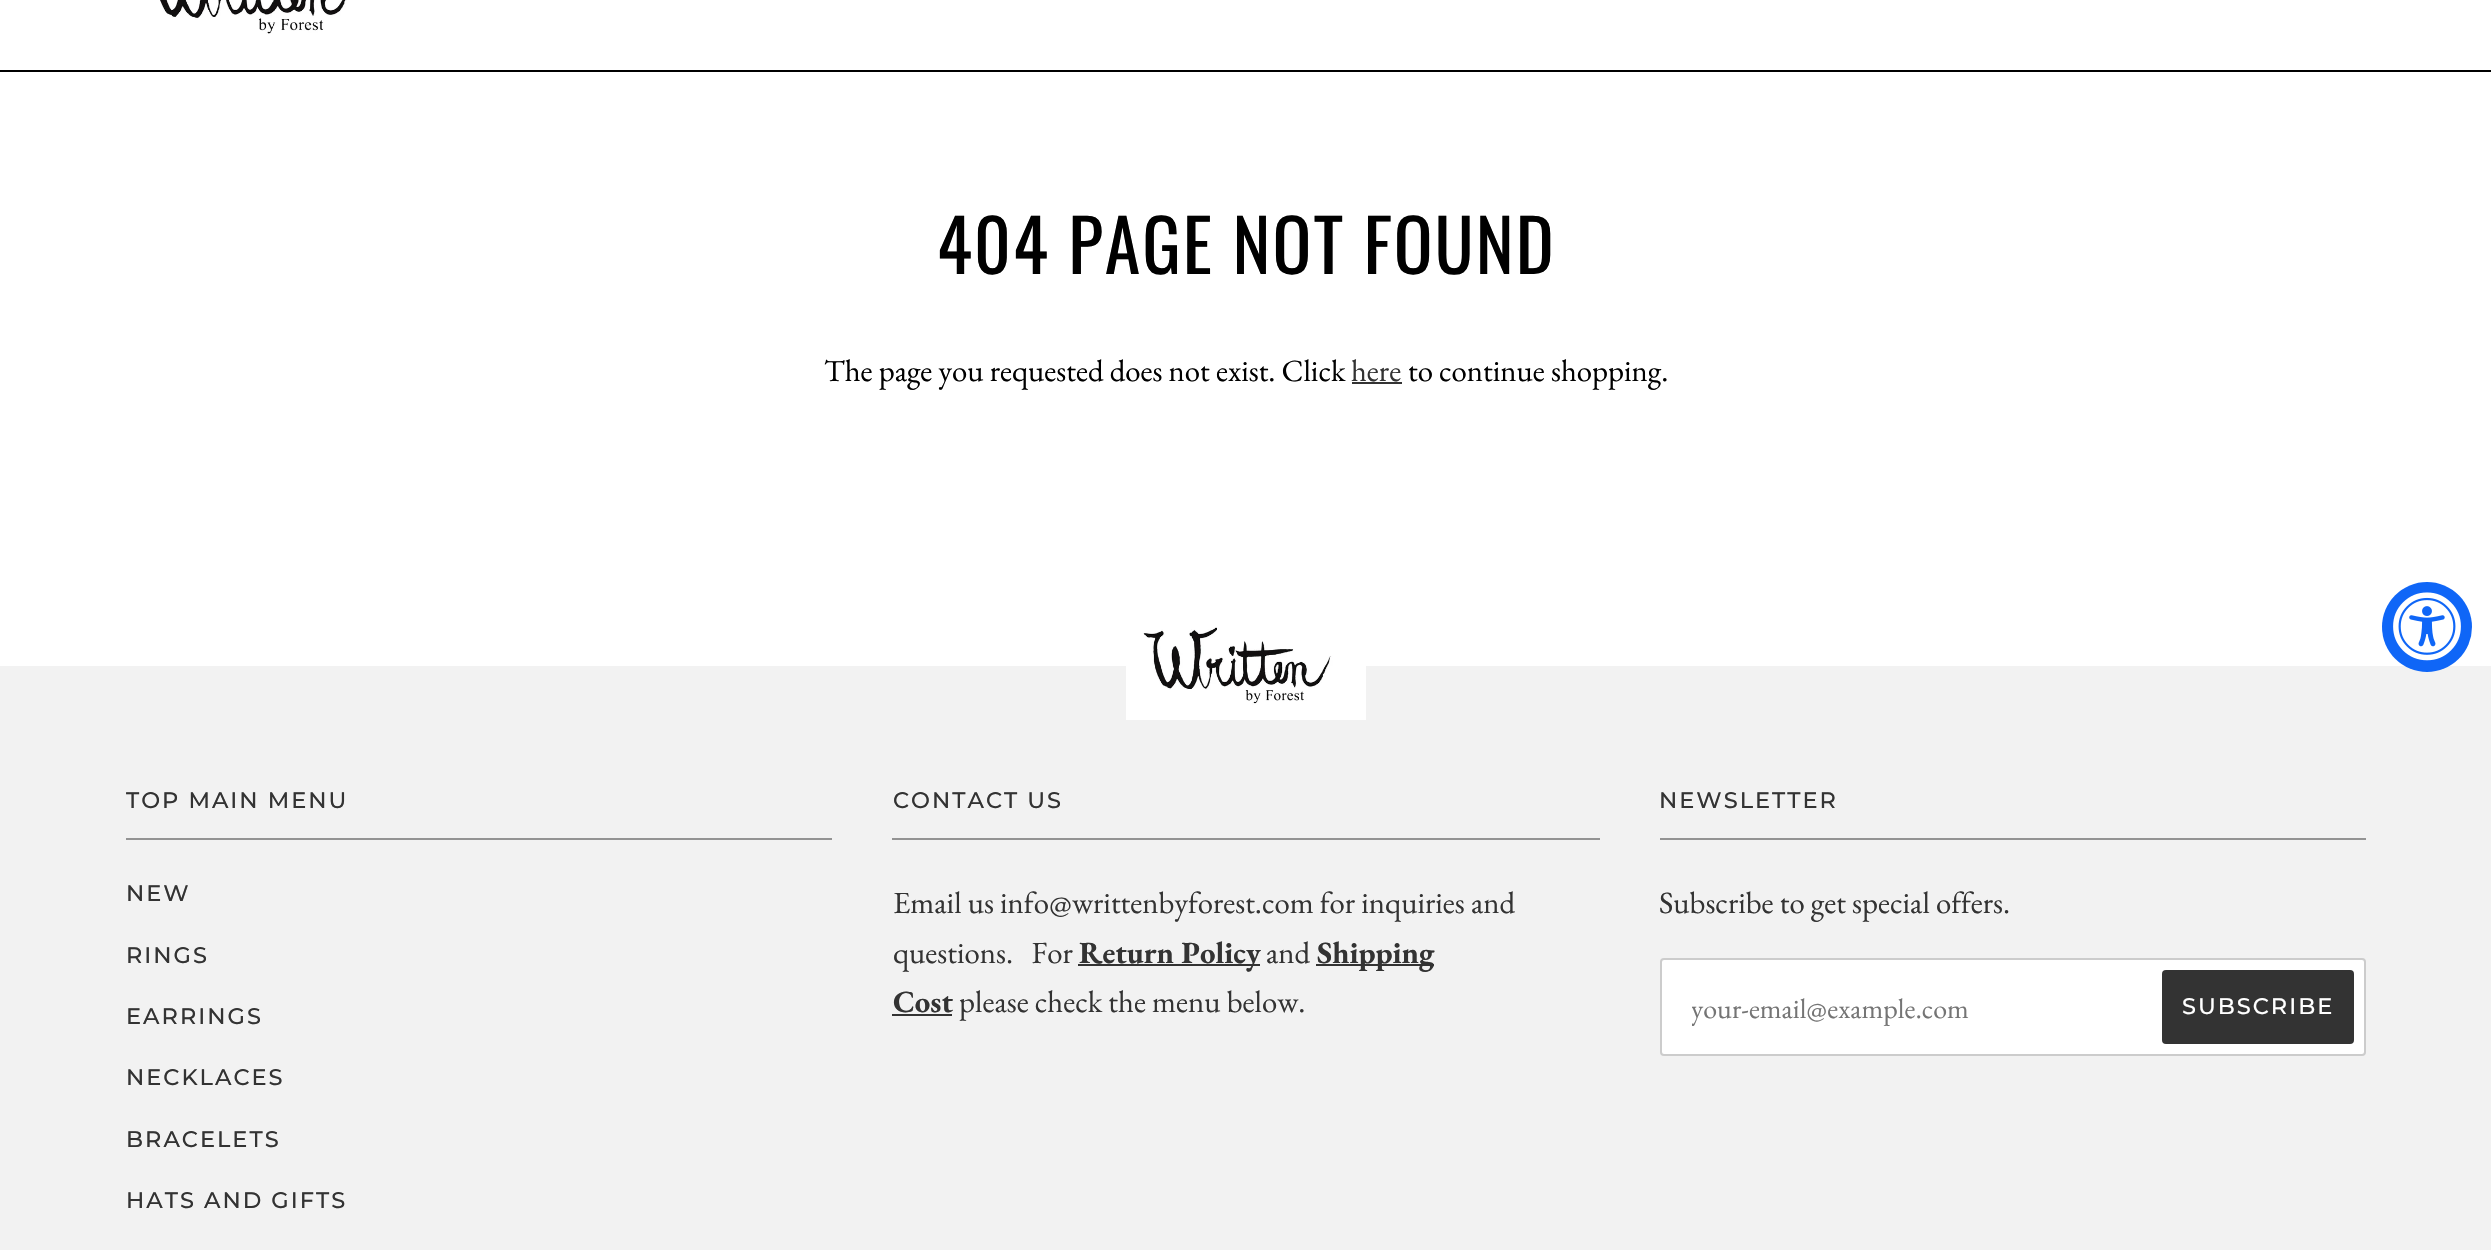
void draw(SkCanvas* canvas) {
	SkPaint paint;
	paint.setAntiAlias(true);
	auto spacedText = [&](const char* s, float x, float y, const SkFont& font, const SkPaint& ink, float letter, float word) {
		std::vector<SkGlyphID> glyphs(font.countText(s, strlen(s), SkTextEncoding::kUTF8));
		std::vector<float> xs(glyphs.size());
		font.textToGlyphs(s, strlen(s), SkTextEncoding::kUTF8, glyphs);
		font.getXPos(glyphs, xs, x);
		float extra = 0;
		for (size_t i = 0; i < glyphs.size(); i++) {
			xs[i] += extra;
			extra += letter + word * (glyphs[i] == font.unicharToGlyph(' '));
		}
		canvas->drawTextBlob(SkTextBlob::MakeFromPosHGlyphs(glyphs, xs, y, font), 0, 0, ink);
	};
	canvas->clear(0xffffffff);
	paint.setColor(0xff000000);
	canvas->drawRect(SkRect::MakeXYWH(0, 70, 2491, 2), paint);
	canvas->drawImageRect(SkImages::DeferredFromEncodedData(SkData::MakeFromFileName("img1.png")), SkRect::MakeXYWH(160, 0, 187, 34), SkSamplingOptions());
	SkFont f1(fontMgr->matchFamilyStyle("Oswald", SkFontStyle::Normal()), 72);
	f1.setSubpixel(true);
	spacedText("404 PAGE NOT FOUND", 937, 274, f1, paint, 2, 0);
	SkFont f2(fontMgr->matchFamilyStyle("EB Garamond", SkFontStyle::Normal()), 30.8);
	f2.setSubpixel(true);
	canvas->drawString("The page you requested does not exist. Click", 824, 381, f2, paint);
	paint.setColor(0xff333333);
	canvas->drawString("here", 1351, 381, f2, paint);
	canvas->drawRect(SkRect::MakeXYWH(1352, 382, 50, 2), paint);
	paint.setColor(0xff000000);
	canvas->drawString("to continue shopping.", 1408, 381, f2, paint);
	paint.setColor(0xfff2f2f2);
	canvas->drawRect(SkRect::MakeXYWH(0, 666, 2491, 584), paint);
	paint.setColor(0xff0f66f7);
	canvas->drawCircle(2427, 627, 45, paint);
	canvas->drawImageRect(SkImages::DeferredFromEncodedData(SkData::MakeFromFileName("img2.png")), SkRect::MakeXYWH(2393, 592, 68, 69), SkSamplingOptions());
	canvas->drawImageRect(SkImages::DeferredFromEncodedData(SkData::MakeFromFileName("img3.png")), SkRect::MakeXYWH(1126, 627, 240, 93), SkSamplingOptions());
	SkFont f3(fontMgr->matchFamilyStyle("Montserrat", SkFontStyle(500, SkFontStyle::kNormal_Width, SkFontStyle::kUpright_Slant)), 22.5);
	f3.setSubpixel(true);
	paint.setColor(0xff333333);
	spacedText("TOP MAIN MENU", 126, 808, f3, paint, 2, 0);
	paint.setColor(0xff939393);
	canvas->drawRect(SkRect::MakeXYWH(126, 838, 706, 2), paint);
	paint.setColor(0xff333333);
	spacedText("NEW", 126, 901, f3, paint, 2, 0);
	spacedText("RINGS", 126, 963, f3, paint, 2, 0);
	spacedText("EARRINGS", 126, 1024, f3, paint, 2, 0);
	spacedText("NECKLACES", 126, 1085, f3, paint, 2, 0);
	spacedText("BRACELETS", 126, 1147, f3, paint, 2, 0);
	spacedText("HATS AND GIFTS", 126, 1208, f3, paint, 2, 0);
	spacedText("CONTACT US", 893, 808, f3, paint, 2, 0);
	paint.setColor(0xff939393);
	canvas->drawRect(SkRect::MakeXYWH(892, 838, 708, 2), paint);
	paint.setColor(0xff333333);
	canvas->drawString("Email us info@writtenbyforest.com for inquiries and", 893, 913, f2, paint);
	canvas->drawString("questions.   For", 893, 963, f2, paint);
	canvas->drawRect(SkRect::MakeXYWH(1078, 964, 182, 2), paint);
	SkFont f4(fontMgr->matchFamilyStyle("EB Garamond", SkFontStyle::Bold()), 30.8);
	f4.setSubpixel(true);
	canvas->drawString("Return Policy", 1079, 963, f4, paint);
	canvas->drawString("and", 1266, 963, f2, paint);
	canvas->drawRect(SkRect::MakeXYWH(1316, 964, 118, 2), paint);
	canvas->drawString("Shipping", 1317, 963, f4, paint);
	canvas->drawString("Cost", 893, 1012, f4, paint);
	canvas->drawRect(SkRect::MakeXYWH(892, 1014, 60, 2), paint);
	canvas->drawString("please check the menu below.", 959, 1012, f2, paint);
	spacedText("NEWSLETTER", 1659, 808, f3, paint, 2, 0);
	paint.setColor(0xff939393);
	canvas->drawRect(SkRect::MakeXYWH(1660, 838, 706, 2), paint);
	paint.setColor(0xff333333);
	canvas->drawString("Subscribe to get special offers.", 1659, 913, f2, paint);
	paint.setColor(0xffffffff);
	canvas->drawRoundRect(SkRect::MakeXYWH(1661, 959, 704, 96), 3, 3, paint);
	paint.setStroke(true);
	paint.setStrokeWidth(2);
	paint.setColor(0xffcccccc);
	canvas->drawRoundRect(SkRect::MakeXYWH(1661, 959, 704, 96), 3, 3, paint);
	canvas->save();
	canvas->clipRect(SkRect::MakeXYWH(1692, 990, 450, 36));
	SkFont f5(fontMgr->matchFamilyStyle("EB Garamond", SkFontStyle::Normal()), 28);
	f5.setSubpixel(true);
	paint.setStroke(false);
	paint.setColor(0xff757575);
	canvas->drawString("your-email@example.com", 1691, 1018, f5, paint);
	canvas->restore();
	paint.setColor(0xff333333);
	canvas->drawRoundRect(SkRect::MakeXYWH(2162, 970, 192, 74), 4, 4, paint);
	paint.setColor(0xffffffff);
	spacedText("SUBSCRIBE", 2182, 1014, f3, paint, 2, 0);
}
